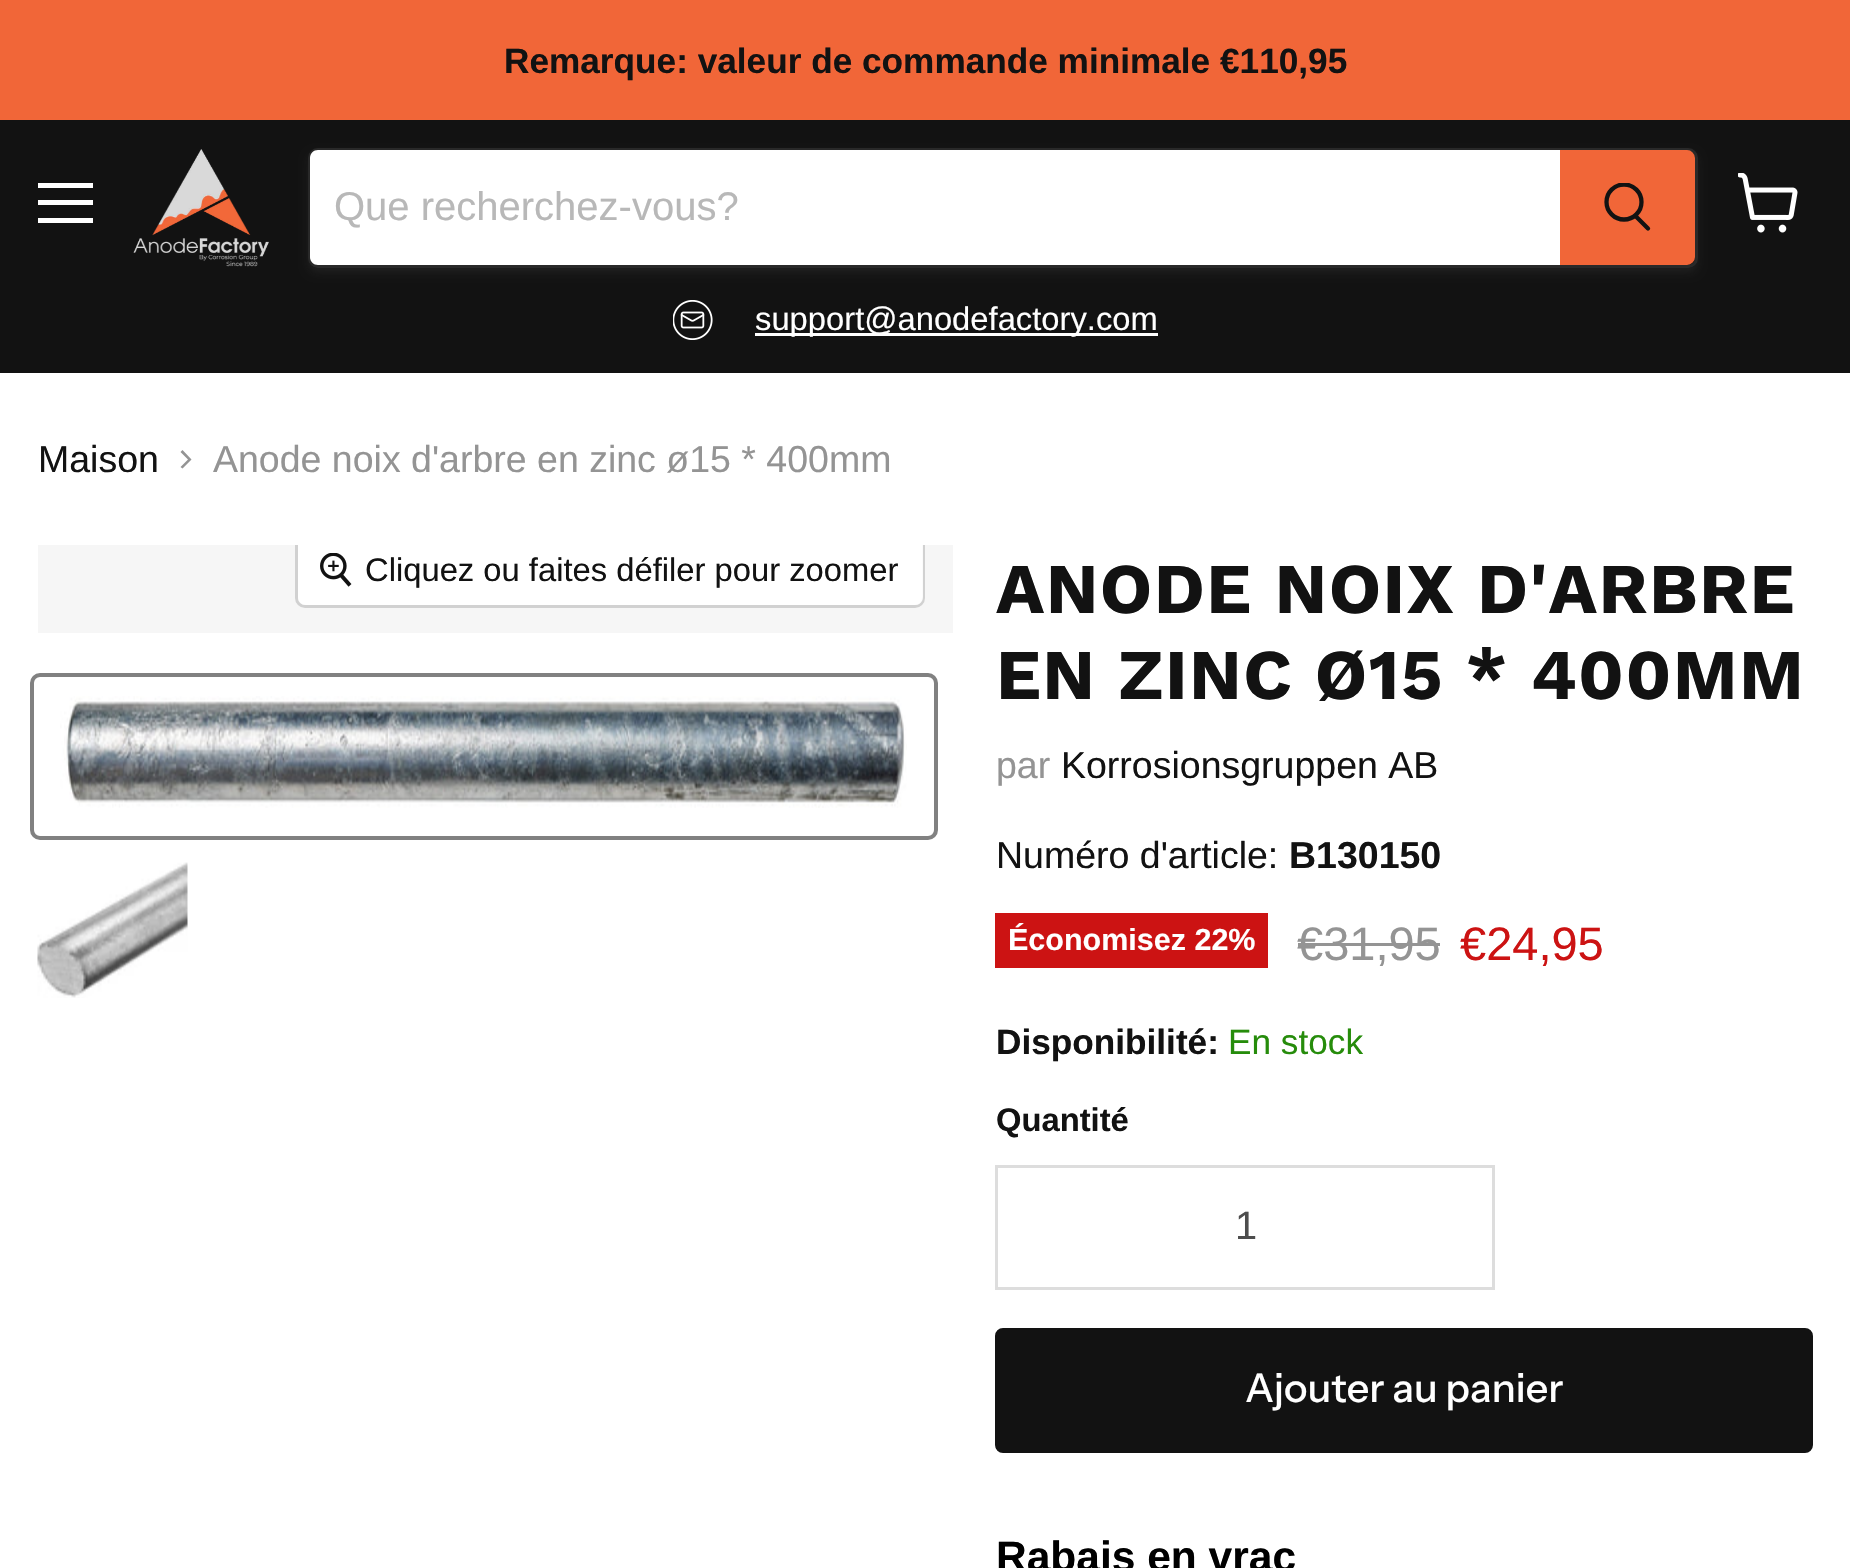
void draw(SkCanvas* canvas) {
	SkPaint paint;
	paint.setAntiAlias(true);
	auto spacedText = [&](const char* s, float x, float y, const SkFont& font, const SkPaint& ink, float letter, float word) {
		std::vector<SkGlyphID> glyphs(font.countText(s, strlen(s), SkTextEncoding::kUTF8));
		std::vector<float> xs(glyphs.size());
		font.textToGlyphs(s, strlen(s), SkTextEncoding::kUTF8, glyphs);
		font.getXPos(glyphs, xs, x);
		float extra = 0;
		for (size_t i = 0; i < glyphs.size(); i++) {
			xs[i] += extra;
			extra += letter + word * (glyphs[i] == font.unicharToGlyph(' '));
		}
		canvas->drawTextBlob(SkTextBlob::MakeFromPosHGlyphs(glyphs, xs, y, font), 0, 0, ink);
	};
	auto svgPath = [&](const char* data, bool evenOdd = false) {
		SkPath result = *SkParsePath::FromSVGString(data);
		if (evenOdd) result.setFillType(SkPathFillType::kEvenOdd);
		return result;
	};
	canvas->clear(0xffffffff);
	paint.setColor(0xfff16638);
	canvas->drawRect(SkRect::MakeXYWH(0, 0, 1850, 120), paint);
	SkFont f1(fontMgr->matchFamilyStyle("Liberation Sans", SkFontStyle::Bold()), 35.2);
	f1.setSubpixel(true);
	paint.setColor(0xff121212);
	canvas->drawString("Remarque: valeur de commande minimale €110,95", 504, 73, f1, paint);
	canvas->drawRect(SkRect::MakeXYWH(0, 120, 1850, 253), paint);
	paint.setColor(0xffffffff);
	canvas->drawRect(SkRect::MakeXYWH(38, 183, 55, 5), paint);
	canvas->drawRect(SkRect::MakeXYWH(38, 200, 55, 5), paint);
	canvas->drawRect(SkRect::MakeXYWH(38, 218, 55, 5), paint);
	canvas->drawImageRect(SkImages::DeferredFromEncodedData(SkData::MakeFromFileName("img1.png")), SkRect::MakeXYWH(133, 149, 136, 118), SkSamplingOptions());
	canvas->save();
	canvas->clipPath(svgPath("M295 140H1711V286H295ZM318 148H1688C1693.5 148 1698 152.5 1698 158V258C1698 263.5 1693.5 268 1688 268H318C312.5 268 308 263.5 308 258V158C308 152.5 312.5 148 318 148Z", true), true);
	paint.setColor(0x1c808080);
	paint.setMaskFilter(SkMaskFilter::MakeBlur(kNormal_SkBlurStyle, 4));
	canvas->drawRoundRect(SkRect::MakeXYWH(308, 153, 1390, 120), 10, 10, paint);
	paint.setMaskFilter(nullptr);
	canvas->restore();
	paint.setStroke(true);
	paint.setStrokeWidth(3);
	paint.setColor(0x33808080);
	canvas->drawRoundRect(SkRect::MakeXYWH(309.5, 149.5, 1387, 117), 8.5, 8.5, paint);
	paint.setStroke(false);
	paint.setColor(0xffffffff);
	canvas->drawPath(svgPath("M318 150H1560V265H318C313.5 265 310 261.5 310 257V158C310 153.5 313.5 150 318 150Z"), paint);
	SkFont f2(fontMgr->matchFamilyStyle("Liberation Sans", SkFontStyle::Normal()), 40);
	f2.setSubpixel(true);
	paint.setColor(0xffb8b8b8);
	canvas->drawString("Que recherchez-vous?", 334, 220, f2, paint);
	paint.setColor(0xfff16638);
	canvas->drawPath(svgPath("M1561.5 151.5H1687C1690.5 151.5 1693.5 154.5 1693.5 158V257C1693.5 260.5 1690.5 263.5 1687 263.5H1561.5Z"), paint);
	paint.setStroke(true);
	canvas->drawPath(svgPath("M1561.5 151.5H1687C1690.5 151.5 1693.5 154.5 1693.5 158V257C1693.5 260.5 1690.5 263.5 1687 263.5H1561.5Z"), paint);
	paint.setStrokeWidth(4.3);
	paint.setStrokeCap(SkPaint::kRound_Cap);
	paint.setColor(0xff121212);
	canvas->drawPath(svgPath("M1648 228.5L1636 216.5"), paint);
	canvas->save();
	canvas->clipRect(SkRect::MakeXYWH(1603, 183, 50, 52));
	paint.setStrokeCap(SkPaint::kButt_Cap);
	canvas->drawCircle(1624, 202, 17.5, paint);
	canvas->restore();
	canvas->drawImageRect(SkImages::DeferredFromEncodedData(SkData::MakeFromFileName("img2.png")), SkRect::MakeXYWH(673, 300, 40, 40), SkSamplingOptions());
	paint.setStroke(false);
	paint.setColor(0xffffffff);
	canvas->drawRect(SkRect::MakeXYWH(755, 333, 403, 3), paint);
	SkFont f3(fontMgr->matchFamilyStyle("Liberation Sans", SkFontStyle::Normal()), 32.75);
	f3.setSubpixel(true);
	canvas->drawString("support@anodefactory.com", 755, 330, f3, paint);
	canvas->drawImageRect(SkImages::DeferredFromEncodedData(SkData::MakeFromFileName("img3.png")), SkRect::MakeXYWH(1738, 173, 60, 60), SkSamplingOptions());
	SkFont f4(fontMgr->matchFamilyStyle("Liberation Sans", SkFontStyle::Normal()), 37.5);
	f4.setSubpixel(true);
	paint.setColor(0xff121212);
	canvas->drawString("Maison", 38, 472, f4, paint);
	paint.setColor(0xff949494);
	canvas->drawPath(svgPath("M180.5 467L182.5 468.5L191.5 459.5L182.5 450L180.5 452L188 459.5Z", true), paint);
	canvas->drawString("Anode noix d'arbre en zinc ø15 * 400mm", 213, 472, f4, paint);
	paint.setColor(0xfff6f6f6);
	canvas->drawRect(SkRect::MakeXYWH(38, 545, 915, 88), paint);
	canvas->save();
	canvas->clipRect(SkRect::MakeXYWH(38, 545, 915, 88));
	paint.setStroke(true);
	paint.setStrokeWidth(3);
	paint.setColor(0xffd1d1d1);
	canvas->drawRoundRect(SkRect::MakeXYWH(296.5, 534.5, 627, 72), 8.5, 8.5, paint);
	canvas->restore();
	paint.setStroke(false);
	paint.setColor(0xe6ffffff);
	canvas->drawPath(svgPath("M298 545H923V597C923 601.5 919.5 605 915 605H306C301.5 605 298 601.5 298 597Z"), paint);
	canvas->drawImageRect(SkImages::DeferredFromEncodedData(SkData::MakeFromFileName("img4.png")), SkRect::MakeXYWH(320, 553, 32, 34), SkSamplingOptions());
	paint.setColor(0xff121212);
	canvas->drawString("Cliquez ou faites défiler pour zoomer", 365, 581, f3, paint);
	paint.setStroke(true);
	paint.setStrokeWidth(4);
	paint.setColor(0xff818181);
	canvas->drawRoundRect(SkRect::MakeXYWH(32, 675, 904, 163), 8, 8, paint);
	canvas->drawImageRect(SkImages::DeferredFromEncodedData(SkData::MakeFromFileName("img5.png")), SkRect::MakeXYWH(60, 696, 847, 112), SkSamplingOptions());
	canvas->drawImageRect(SkImages::DeferredFromEncodedData(SkData::MakeFromFileName("img6.png")), SkRect::MakeXYWH(37, 862, 151, 136), SkSamplingOptions());
	SkFont f5(fontMgr->matchFamilyStyle("Work Sans", SkFontStyle::Bold()), 71.25);
	f5.setSubpixel(true);
	paint.setStroke(false);
	paint.setColor(0xff121212);
	spacedText("ANODE NOIX D'ARBRE", 996, 613, f5, paint, 1.4, 0);
	spacedText("EN ZINC Ø15 * 400MM", 996, 699, f5, paint, 1.4, 0);
	paint.setColor(0xff949494);
	canvas->drawString("par", 996, 778, f4, paint);
	paint.setColor(0xff121212);
	canvas->drawString("Korrosionsgruppen AB", 1061, 778, f4, paint);
	canvas->drawString("Numéro d'article:", 996, 868, f4, paint);
	SkFont f6(fontMgr->matchFamilyStyle("Liberation Sans", SkFontStyle::Bold()), 37.5);
	f6.setSubpixel(true);
	canvas->drawString("B130150", 1289, 868, f6, paint);
	paint.setColor(0xffcc1313);
	canvas->drawRect(SkRect::MakeXYWH(995, 913, 273, 55), paint);
	SkFont f7(fontMgr->matchFamilyStyle("Liberation Sans", SkFontStyle::Bold()), 30.5);
	f7.setSubpixel(true);
	paint.setColor(0xffffffff);
	canvas->drawString("Économisez 22%", 1008, 950, f7, paint);
	SkFont f8(fontMgr->matchFamilyStyle("Liberation Sans", SkFontStyle::Normal()), 47);
	f8.setSubpixel(true);
	paint.setColor(0xff949494);
	canvas->drawString("€31,95", 1297, 960, f8, paint);
	canvas->drawRect(SkRect::MakeXYWH(1298, 943, 142, 3), paint);
	paint.setColor(0xffcc1313);
	canvas->drawString("€24,95", 1460, 960, f8, paint);
	paint.setColor(0xff121212);
	canvas->drawString("Disponibilité:", 996, 1054, f1, paint);
	SkFont f9(fontMgr->matchFamilyStyle("Liberation Sans", SkFontStyle::Normal()), 35.2);
	f9.setSubpixel(true);
	paint.setColor(0xff268c0b);
	canvas->drawString("En stock", 1228, 1054, f9, paint);
	SkFont f10(fontMgr->matchFamilyStyle("Liberation Sans", SkFontStyle::Bold()), 32.75);
	f10.setSubpixel(true);
	paint.setColor(0xff121212);
	canvas->drawString("Quantité", 996, 1131, f10, paint);
	paint.setStroke(true);
	paint.setStrokeWidth(3);
	paint.setColor(0xffdddddd);
	canvas->drawRect(SkRect::MakeXYWH(996.5, 1166.5, 497, 122), paint);
	SkFont f11(fontMgr->matchFamilyStyle("Liberation Sans", SkFontStyle::Normal()), 39.75);
	f11.setSubpixel(true);
	paint.setStroke(false);
	paint.setColor(0xff4d4d4d);
	canvas->drawString("1", 1235, 1239, f11, paint);
	paint.setColor(0xff121212);
	canvas->drawRoundRect(SkRect::MakeXYWH(996.5, 1329.5, 815, 122), 6.5, 6.5, paint);
	paint.setStroke(true);
	canvas->drawRoundRect(SkRect::MakeXYWH(996.5, 1329.5, 815, 122), 6.5, 6.5, paint);
	SkFont f12(fontMgr->matchFamilyStyle("Instrument Sans", SkFontStyle(500, SkFontStyle::kNormal_Width, SkFontStyle::kUpright_Slant)), 39.75);
	f12.setSubpixel(true);
	paint.setStroke(false);
	paint.setColor(0xffffffff);
	canvas->drawString("Ajouter au panier", 1245, 1402, f12, paint);
	SkFont f13(fontMgr->matchFamilyStyle("Liberation Sans", SkFontStyle::Bold()), 42.5);
	f13.setSubpixel(true);
	paint.setColor(0xff000000);
	canvas->drawString("Rabais en vrac", 996, 1571, f13, paint);
}
